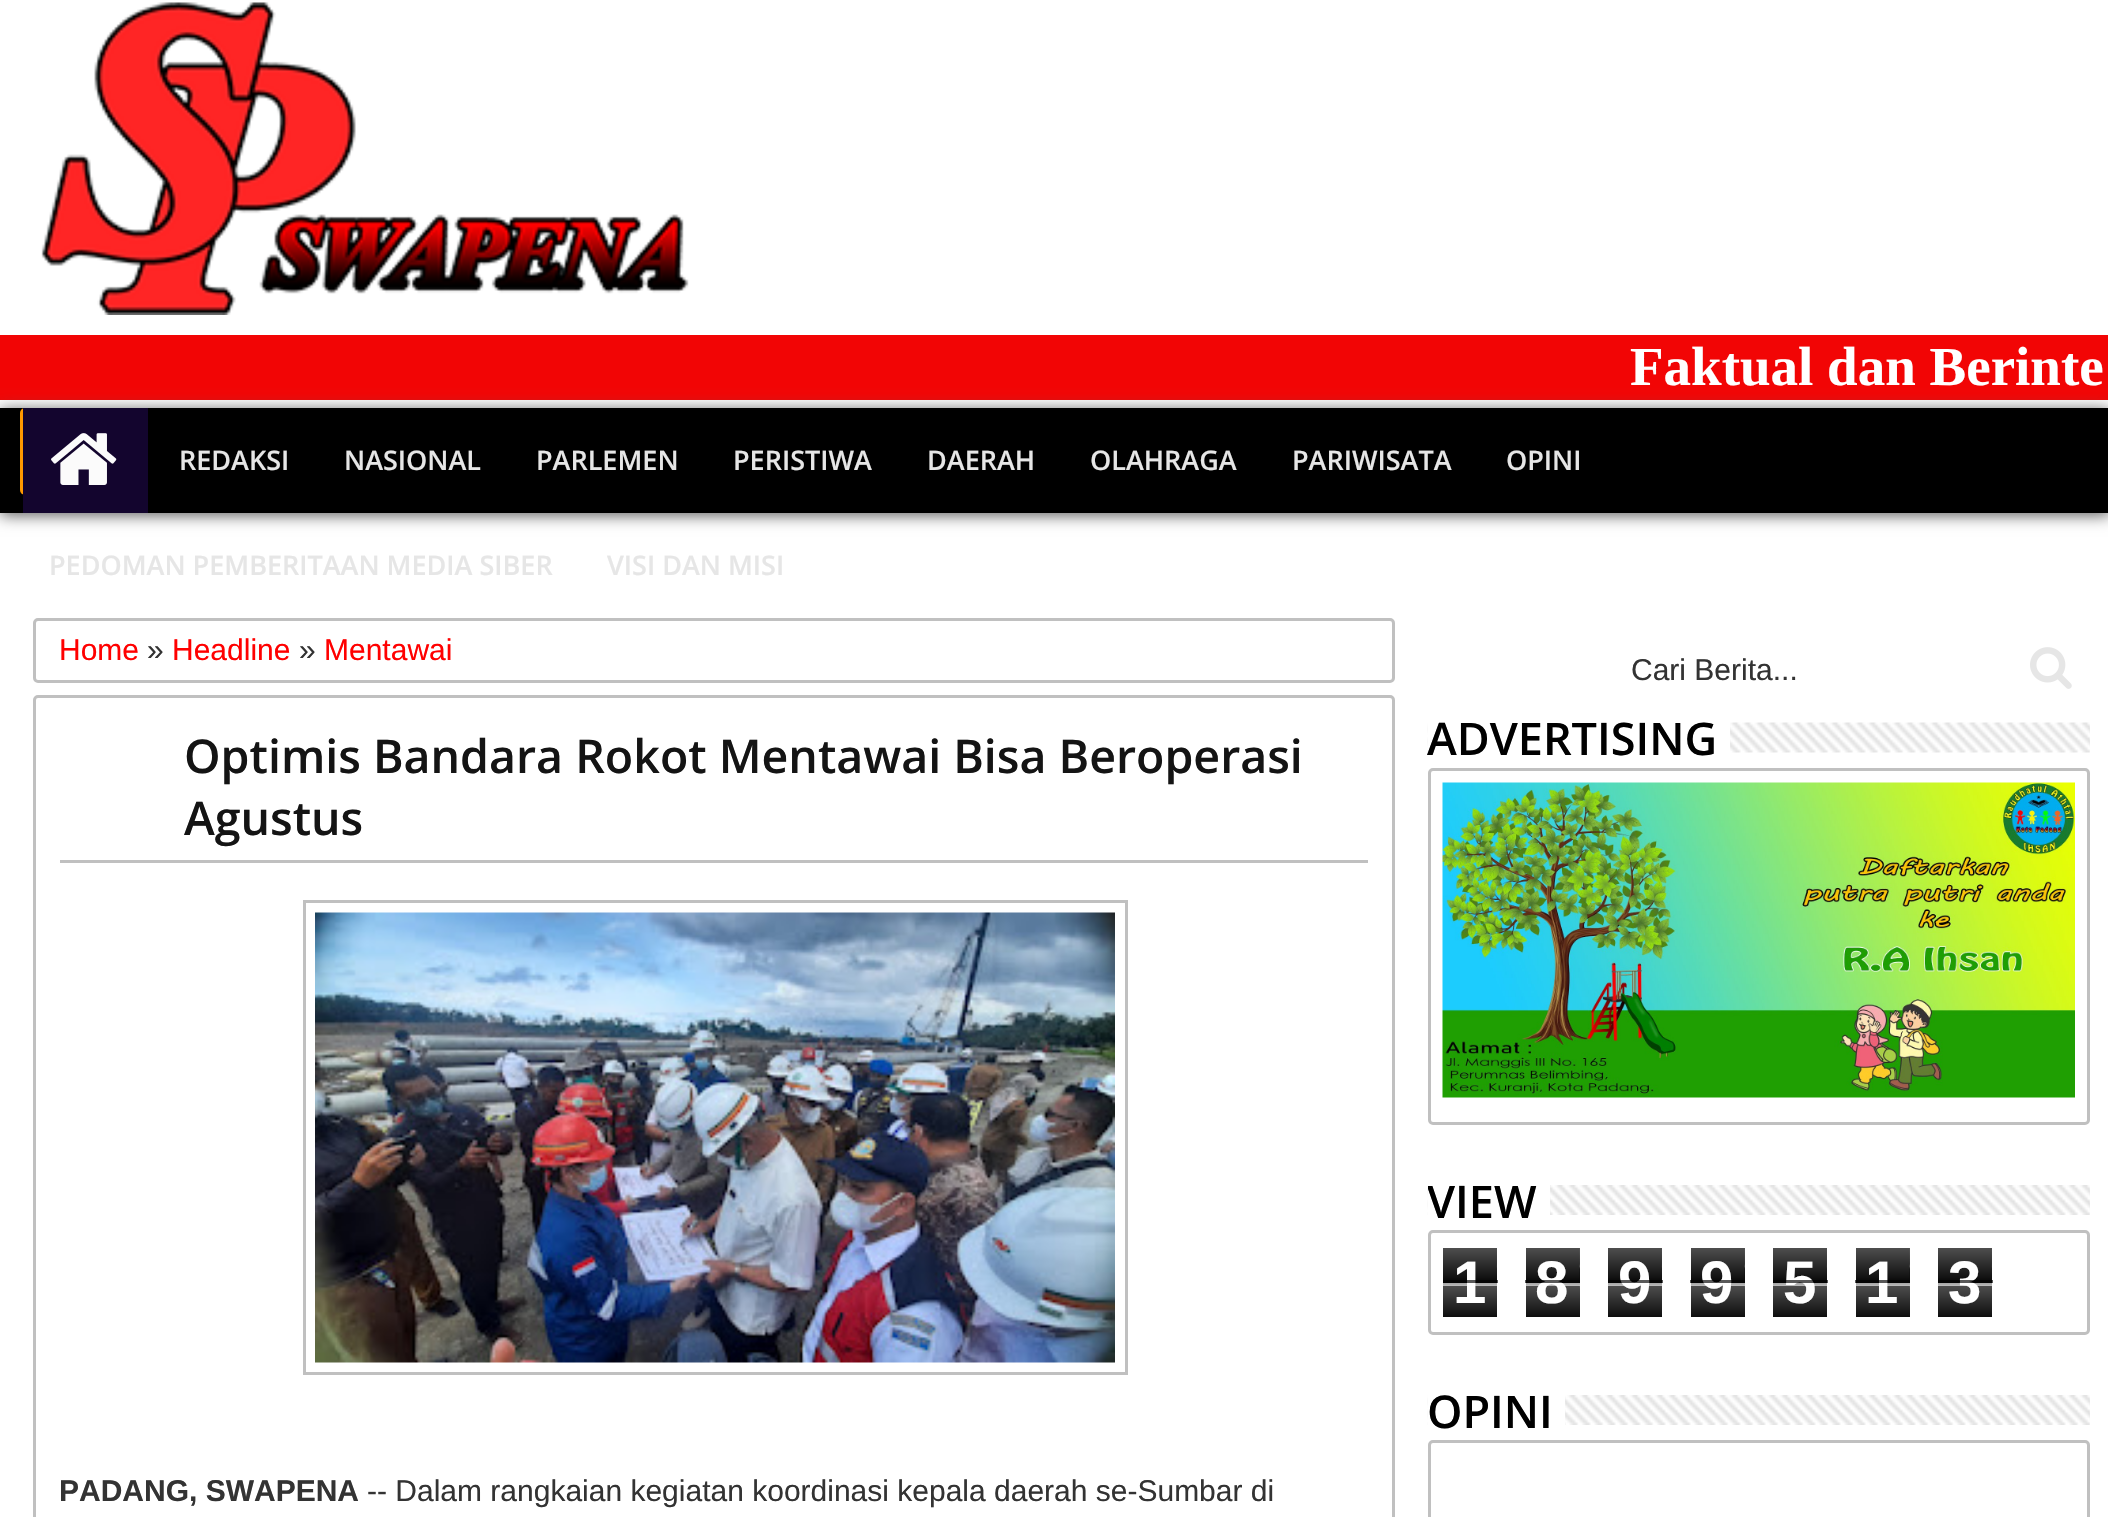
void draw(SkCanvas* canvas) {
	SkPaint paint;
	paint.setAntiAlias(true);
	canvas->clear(0xffffffff);
	canvas->drawImageRect(SkImages::DeferredFromEncodedData(SkData::MakeFromFileName("img1.png")), SkRect::MakeXYWH(41, 2, 648, 313), SkSamplingOptions());
	paint.setColor(0xfff20505);
	canvas->drawRect(SkRect::MakeXYWH(0, 335, 2108, 65), paint);
	SkFont f1(fontMgr->matchFamilyStyle("Liberation Serif", SkFontStyle::Bold()), 55);
	f1.setSubpixel(true);
	paint.setColor(0xffffffff);
	canvas->drawString("Faktual dan Berinte", 1630, 385, f1, paint);
	paint.setColor(0xff585858);
	paint.setMaskFilter(SkMaskFilter::MakeBlur(kNormal_SkBlurStyle, 7.5));
	canvas->drawRect(SkRect::MakeXYWH(0, 410, 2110, 105), paint);
	paint.setMaskFilter(nullptr);
	paint.setColor(0xff000000);
	canvas->drawRect(SkRect::MakeXYWH(0, 408, 2108, 105), paint);
	paint.setColor(0xffff9900);
	canvas->drawRoundRect(SkRect::MakeXYWH(20, 408, 88, 87), 5, 5, paint);
	paint.setColor(0xff13052e);
	canvas->drawRect(SkRect::MakeXYWH(23, 408, 125, 105), paint);
	canvas->drawImageRect(SkImages::DeferredFromEncodedData(SkData::MakeFromFileName("img2.png")), SkRect::MakeXYWH(51, 433, 66, 52), SkSamplingOptions());
	SkFont f2(fontMgr->matchFamilyStyle("Open Sans", SkFontStyle(600, SkFontStyle::kNormal_Width, SkFontStyle::kUpright_Slant)), 27);
	f2.setSubpixel(true);
	paint.setColor(0xffe6e6e6);
	canvas->drawString("REDAKSI", 179, 470, f2, paint);
	canvas->drawString("NASIONAL", 344, 470, f2, paint);
	canvas->drawString("PARLEMEN", 536, 470, f2, paint);
	canvas->drawString("PERISTIWA", 733, 470, f2, paint);
	canvas->drawString("DAERAH", 927, 470, f2, paint);
	canvas->drawString("OLAHRAGA", 1090, 470, f2, paint);
	canvas->drawString("PARIWISATA", 1292, 470, f2, paint);
	canvas->drawString("OPINI", 1506, 470, f2, paint);
	canvas->drawString("PEDOMAN PEMBERITAAN MEDIA SIBER", 49, 575, f2, paint);
	canvas->drawString("VISI DAN MISI", 607, 575, f2, paint);
	SkFont f3(fontMgr->matchFamilyStyle("Liberation Sans", SkFontStyle::Normal()), 30);
	f3.setSubpixel(true);
	paint.setColor(0xff333333);
	canvas->drawString("Cari Berita...", 1631, 680, f3, paint);
	canvas->drawImageRect(SkImages::DeferredFromEncodedData(SkData::MakeFromFileName("img3.png")), SkRect::MakeXYWH(2030, 647, 42, 42), SkSamplingOptions());
	paint.setStroke(true);
	paint.setStrokeWidth(3);
	paint.setColor(0xffc0c0c0);
	canvas->drawRoundRect(SkRect::MakeXYWH(34.5, 619.5, 1359, 62), 3.5, 3.5, paint);
	paint.setStroke(false);
	paint.setColor(0xffff0000);
	canvas->drawString("Home", 59, 660, f3, paint);
	paint.setColor(0xff333333);
	canvas->drawString("»", 147, 660, f3, paint);
	paint.setColor(0xffff0000);
	canvas->drawString("Headline", 172, 660, f3, paint);
	paint.setColor(0xff333333);
	canvas->drawString("»", 299, 660, f3, paint);
	paint.setColor(0xffff0000);
	canvas->drawString("Mentawai", 324, 660, f3, paint);
	paint.setStroke(true);
	paint.setColor(0xffc0c0c0);
	canvas->drawRoundRect(SkRect::MakeXYWH(34.5, 696.5, 1359, 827), 3.5, 3.5, paint);
	paint.setStroke(false);
	canvas->drawRect(SkRect::MakeXYWH(60, 860, 1308, 3), paint);
	SkFont f4(fontMgr->matchFamilyStyle("Open Sans", SkFontStyle(600, SkFontStyle::kNormal_Width, SkFontStyle::kUpright_Slant)), 46.5);
	f4.setSubpixel(true);
	paint.setColor(0xff141414);
	canvas->drawString("Optimis Bandara Rokot Mentawai Bisa Beroperasi", 184, 773, f4, paint);
	canvas->drawString("Agustus", 184, 835, f4, paint);
	paint.setStroke(true);
	paint.setColor(0xffc0c0c0);
	canvas->drawRect(SkRect::MakeXYWH(304.5, 901.5, 822, 472), paint);
	canvas->drawImageRect(SkImages::DeferredFromEncodedData(SkData::MakeFromFileName("img4.png")), SkRect::MakeXYWH(315, 912, 800, 451), SkSamplingOptions());
	SkFont f5(fontMgr->matchFamilyStyle("Liberation Sans", SkFontStyle::Bold()), 30);
	f5.setSubpixel(true);
	paint.setStroke(false);
	paint.setColor(0xff333333);
	canvas->drawString("PADANG, SWAPENA", 59, 1501, f5, paint);
	canvas->drawString("-- Dalam rangkaian kegiatan koordinasi kepala daerah se-Sumbar di", 367, 1501, f3, paint);
	canvas->drawImageRect(SkImages::DeferredFromEncodedData(SkData::MakeFromFileName("img5.png")), SkRect::MakeXYWH(1427, 722, 663, 31), SkSamplingOptions());
	paint.setColor(0xffffffff);
	canvas->drawRect(SkRect::MakeXYWH(1428, 722, 302, 31), paint);
	SkFont f6(fontMgr->matchFamilyStyle("Open Sans", SkFontStyle(600, SkFontStyle::kNormal_Width, SkFontStyle::kUpright_Slant)), 45);
	f6.setSubpixel(true);
	paint.setColor(0xff000000);
	canvas->drawString("ADVERTISING", 1427, 755, f6, paint);
	paint.setStroke(true);
	paint.setColor(0xffc0c0c0);
	canvas->drawRoundRect(SkRect::MakeXYWH(1429.5, 769.5, 659, 354), 3.5, 3.5, paint);
	canvas->drawImageRect(SkImages::DeferredFromEncodedData(SkData::MakeFromFileName("img6.png")), SkRect::MakeXYWH(1442, 782, 633, 316), SkSamplingOptions());
	canvas->drawImageRect(SkImages::DeferredFromEncodedData(SkData::MakeFromFileName("img7.png")), SkRect::MakeXYWH(1427, 1185, 663, 30), SkSamplingOptions());
	paint.setStroke(false);
	paint.setColor(0xffffffff);
	canvas->drawRect(SkRect::MakeXYWH(1428, 1185, 122, 30), paint);
	canvas->save();
	canvas->clipRect(SkRect::MakeXYWH(1428, 1170, 662, 60));
	paint.setColor(0xff000000);
	canvas->drawString("VIEW", 1427, 1218, f6, paint);
	canvas->restore();
	paint.setStroke(true);
	paint.setColor(0xffc0c0c0);
	canvas->drawRoundRect(SkRect::MakeXYWH(1429.5, 1231.5, 659, 102), 3.5, 3.5, paint);
	canvas->drawImageRect(SkImages::DeferredFromEncodedData(SkData::MakeFromFileName("img8.png")), SkRect::MakeXYWH(1443, 1248, 54, 69), SkSamplingOptions());
	SkFont f7(fontMgr->matchFamilyStyle("Liberation Sans", SkFontStyle::Bold()), 60);
	f7.setSubpixel(true);
	paint.setStroke(false);
	paint.setColor(0xffffffff);
	canvas->drawString("1", 1453, 1303, f7, paint);
	paint.setColor(0xa6000000);
	canvas->drawRect(SkRect::MakeXYWH(1443, 1280, 55, 3), paint);
	paint.setColor(0xa6ffffff);
	canvas->drawRect(SkRect::MakeXYWH(1443, 1283, 55, 3), paint);
	canvas->drawImageRect(SkImages::DeferredFromEncodedData(SkData::MakeFromFileName("img9.png")), SkRect::MakeXYWH(1526, 1248, 54, 69), SkSamplingOptions());
	paint.setColor(0xffffffff);
	canvas->drawString("8", 1535, 1303, f7, paint);
	paint.setColor(0xa6000000);
	canvas->drawRect(SkRect::MakeXYWH(1525, 1280, 55, 3), paint);
	paint.setColor(0xa6ffffff);
	canvas->drawRect(SkRect::MakeXYWH(1525, 1283, 55, 3), paint);
	canvas->drawImageRect(SkImages::DeferredFromEncodedData(SkData::MakeFromFileName("img8.png")), SkRect::MakeXYWH(1608, 1248, 54, 69), SkSamplingOptions());
	paint.setColor(0xffffffff);
	canvas->drawString("9", 1618, 1303, f7, paint);
	paint.setColor(0xa6000000);
	canvas->drawRect(SkRect::MakeXYWH(1608, 1280, 55, 3), paint);
	paint.setColor(0xa6ffffff);
	canvas->drawRect(SkRect::MakeXYWH(1608, 1283, 55, 3), paint);
	canvas->drawImageRect(SkImages::DeferredFromEncodedData(SkData::MakeFromFileName("img9.png")), SkRect::MakeXYWH(1691, 1248, 54, 69), SkSamplingOptions());
	paint.setColor(0xffffffff);
	canvas->drawString("9", 1700, 1303, f7, paint);
	paint.setColor(0xa6000000);
	canvas->drawRect(SkRect::MakeXYWH(1690, 1280, 55, 3), paint);
	paint.setColor(0xa6ffffff);
	canvas->drawRect(SkRect::MakeXYWH(1690, 1283, 55, 3), paint);
	canvas->drawImageRect(SkImages::DeferredFromEncodedData(SkData::MakeFromFileName("img8.png")), SkRect::MakeXYWH(1773, 1248, 54, 69), SkSamplingOptions());
	paint.setColor(0xffffffff);
	canvas->drawString("5", 1783, 1303, f7, paint);
	paint.setColor(0xa6000000);
	canvas->drawRect(SkRect::MakeXYWH(1773, 1280, 55, 3), paint);
	paint.setColor(0xa6ffffff);
	canvas->drawRect(SkRect::MakeXYWH(1773, 1283, 55, 3), paint);
	canvas->drawImageRect(SkImages::DeferredFromEncodedData(SkData::MakeFromFileName("img9.png")), SkRect::MakeXYWH(1856, 1248, 54, 69), SkSamplingOptions());
	paint.setColor(0xffffffff);
	canvas->drawString("1", 1865, 1303, f7, paint);
	paint.setColor(0xa6000000);
	canvas->drawRect(SkRect::MakeXYWH(1855, 1280, 55, 3), paint);
	paint.setColor(0xa6ffffff);
	canvas->drawRect(SkRect::MakeXYWH(1855, 1283, 55, 3), paint);
	canvas->drawImageRect(SkImages::DeferredFromEncodedData(SkData::MakeFromFileName("img8.png")), SkRect::MakeXYWH(1938, 1248, 54, 69), SkSamplingOptions());
	paint.setColor(0xffffffff);
	canvas->drawString("3", 1948, 1303, f7, paint);
	paint.setColor(0xa6000000);
	canvas->drawRect(SkRect::MakeXYWH(1938, 1280, 55, 3), paint);
	paint.setColor(0xa6ffffff);
	canvas->drawRect(SkRect::MakeXYWH(1938, 1283, 55, 3), paint);
	canvas->drawImageRect(SkImages::DeferredFromEncodedData(SkData::MakeFromFileName("img10.png")), SkRect::MakeXYWH(1427, 1395, 663, 30), SkSamplingOptions());
	paint.setColor(0xffffffff);
	canvas->drawRect(SkRect::MakeXYWH(1428, 1395, 137, 30), paint);
	paint.setColor(0xff000000);
	canvas->drawString("OPINI", 1427, 1428, f6, paint);
	paint.setStroke(true);
	paint.setColor(0xffc0c0c0);
	canvas->drawRoundRect(SkRect::MakeXYWH(1429.5, 1441.5, 659, 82), 3.5, 3.5, paint);
}
